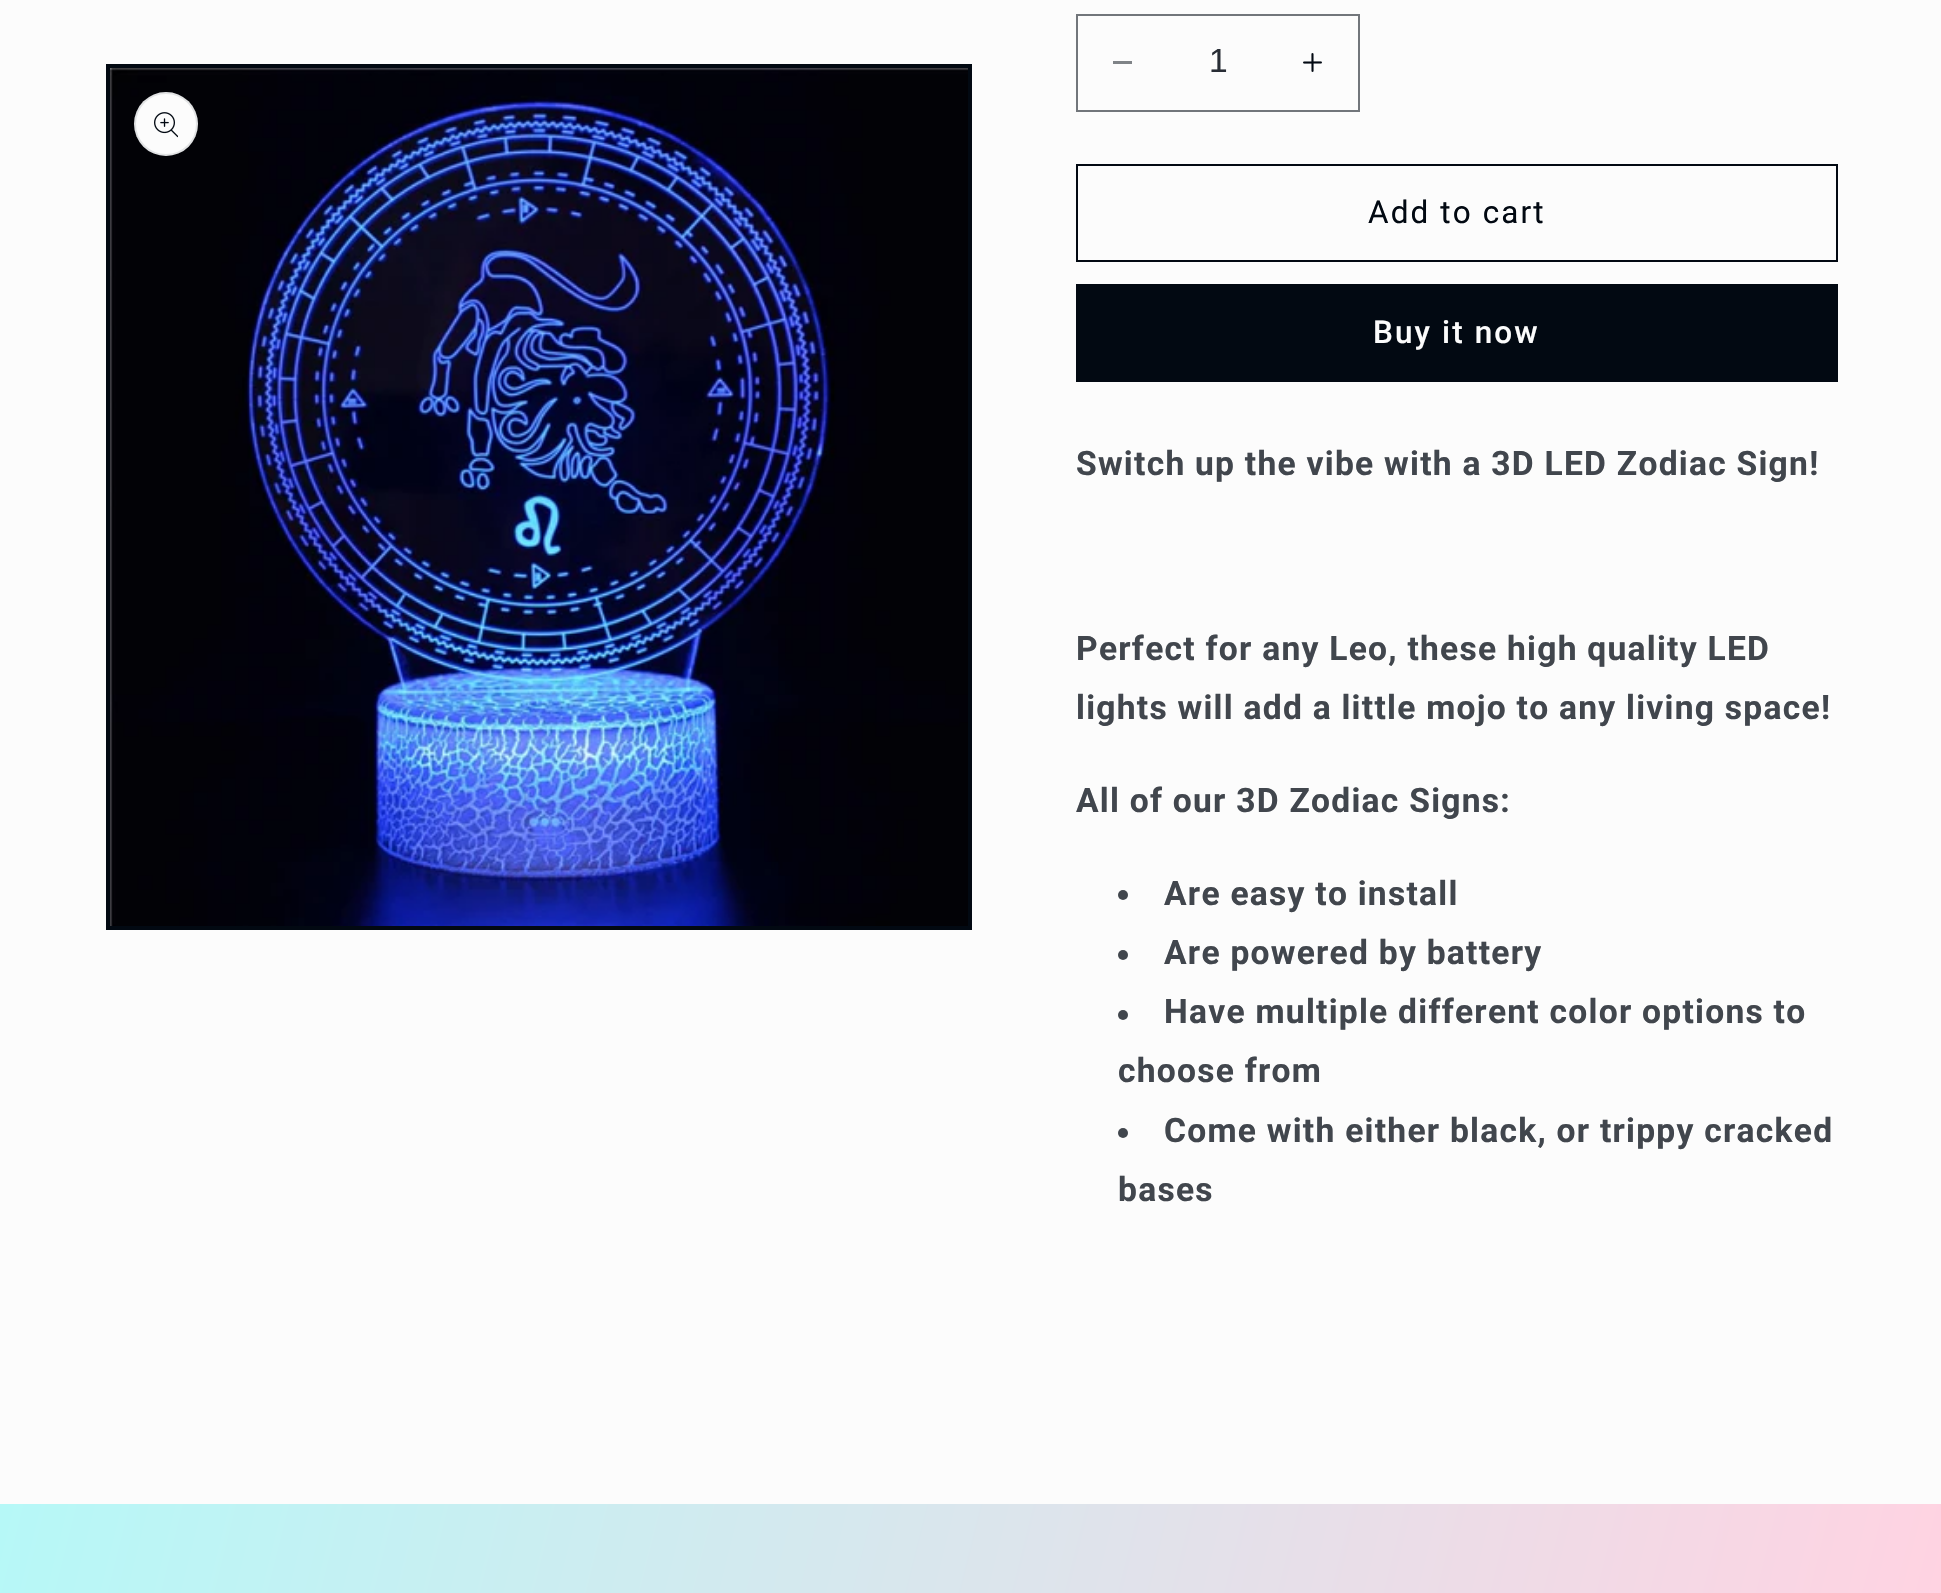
void draw(SkCanvas* canvas) {
	SkPaint paint;
	paint.setAntiAlias(true);
	auto spacedText = [&](const char* s, float x, float y, const SkFont& font, const SkPaint& ink, float letter, float word) {
		std::vector<SkGlyphID> glyphs(font.countText(s, strlen(s), SkTextEncoding::kUTF8));
		std::vector<float> xs(glyphs.size());
		font.textToGlyphs(s, strlen(s), SkTextEncoding::kUTF8, glyphs);
		font.getXPos(glyphs, xs, x);
		float extra = 0;
		for (size_t i = 0; i < glyphs.size(); i++) {
			xs[i] += extra;
			extra += letter + word * (glyphs[i] == font.unicharToGlyph(' '));
		}
		canvas->drawTextBlob(SkTextBlob::MakeFromPosHGlyphs(glyphs, xs, y, font), 0, 0, ink);
	};
	canvas->clear(0xfffcfcfc);
	paint.setStroke(true);
	paint.setStrokeWidth(4);
	paint.setColor(0xff020912);
	canvas->drawRect(SkRect::MakeXYWH(108, 66, 862, 862), paint);
	canvas->drawImageRect(SkImages::DeferredFromEncodedData(SkData::MakeFromFileName("img1.png")), SkRect::MakeXYWH(110, 68, 858, 858), SkSamplingOptions());
	paint.setStroke(false);
	paint.setColor(0xfffcfcfc);
	canvas->drawCircle(166, 124, 32, paint);
	paint.setStroke(true);
	paint.setStrokeWidth(2);
	paint.setColor(0x1a020912);
	canvas->drawCircle(166, 124, 31, paint);
	canvas->drawImageRect(SkImages::DeferredFromEncodedData(SkData::MakeFromFileName("img2.png")), SkRect::MakeXYWH(154, 112, 24, 26), SkSamplingOptions());
	paint.setStroke(false);
	paint.setColor(0xff7f8387);
	canvas->drawRect(SkRect::MakeXYWH(1113, 61, 19, 3), paint);
	canvas->drawImageRect(SkImages::DeferredFromEncodedData(SkData::MakeFromFileName("img3.png")), SkRect::MakeXYWH(1303, 53, 19, 19), SkSamplingOptions());
	paint.setStroke(true);
	paint.setColor(0xff72767b);
	canvas->drawRect(SkRect::MakeXYWH(1077, 15, 282, 96), paint);
	SkFont f1(fontMgr->matchFamilyStyle("Liberation Sans", SkFontStyle::Normal()), 33.6);
	f1.setSubpixel(true);
	paint.setStroke(false);
	paint.setColor(0xff282d35);
	canvas->drawString("1", 1209, 72, f1, paint);
	paint.setStroke(true);
	paint.setColor(0xff020912);
	canvas->drawRect(SkRect::MakeXYWH(1077, 165, 760, 96), paint);
	SkFont f2(fontMgr->matchFamilyStyle("Roboto", SkFontStyle::Normal()), 31.5);
	f2.setSubpixel(true);
	paint.setStroke(false);
	spacedText("Add to cart", 1368, 223, f2, paint, 2.1, 0);
	canvas->drawRect(SkRect::MakeXYWH(1076, 284, 762, 98), paint);
	SkFont f3(fontMgr->matchFamilyStyle("Roboto", SkFontStyle(500, SkFontStyle::kNormal_Width, SkFontStyle::kUpright_Slant)), 31.5);
	f3.setSubpixel(true);
	paint.setColor(0xfffcfcfc);
	spacedText("Buy it now", 1373, 343, f3, paint, 2.1, 0);
	SkFont f4(fontMgr->matchFamilyStyle("Roboto", SkFontStyle::Bold()), 33.6);
	f4.setSubpixel(true);
	paint.setColor(0xff41464d);
	spacedText("Switch up the vibe with a 3D LED Zodiac Sign!", 1076, 475, f4, paint, 1.25, 0);
	spacedText("Perfect for any Leo, these high quality LED", 1076, 660, f4, paint, 1.25, 0);
	spacedText("lights will add a little mojo to any living space!", 1076, 719, f4, paint, 1.25, 0);
	spacedText("All of our 3D Zodiac Signs:", 1076, 812, f4, paint, 1.25, 0);
	canvas->drawCircle(1123, 895, 5, paint);
	spacedText("Are easy to install", 1164, 905, f4, paint, 1.25, 0);
	canvas->drawCircle(1123, 955, 5, paint);
	spacedText("Are powered by battery", 1164, 964, f4, paint, 1.25, 0);
	canvas->drawCircle(1123, 1015, 5, paint);
	spacedText("Have multiple different color options to", 1164, 1023, f4, paint, 1.25, 0);
	spacedText("choose from", 1118, 1082, f4, paint, 1.25, 0);
	canvas->drawCircle(1123, 1133, 5, paint);
	spacedText("Come with either black, or trippy cracked", 1164, 1142, f4, paint, 1.25, 0);
	spacedText("bases", 1118, 1201, f4, paint, 1.25, 0);
	{
		const SkColor colors[] = {0xffffd3e2, 0xffa8fffb};
		const float stops[] = {0, 1};
		const SkPoint ends[] = {{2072, 1072}, {-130, 522}};
		paint.setShader(SkGradientShader::MakeLinear(ends, colors, stops, 2, SkTileMode::kClamp));
		paint.setAlpha(255);
	}
	canvas->drawRect(SkRect::MakeXYWH(0, 1504, 1941, 89), paint);
}
